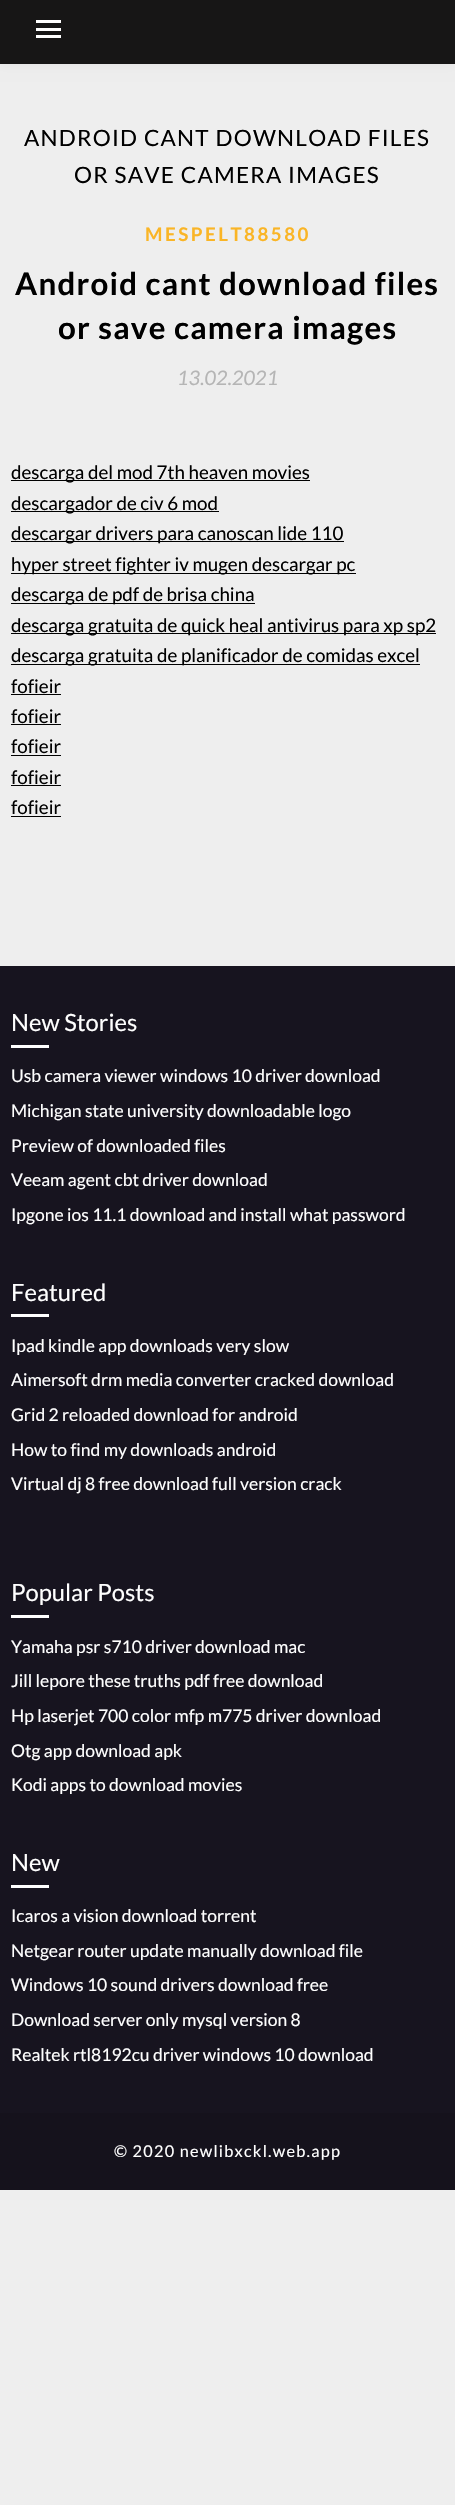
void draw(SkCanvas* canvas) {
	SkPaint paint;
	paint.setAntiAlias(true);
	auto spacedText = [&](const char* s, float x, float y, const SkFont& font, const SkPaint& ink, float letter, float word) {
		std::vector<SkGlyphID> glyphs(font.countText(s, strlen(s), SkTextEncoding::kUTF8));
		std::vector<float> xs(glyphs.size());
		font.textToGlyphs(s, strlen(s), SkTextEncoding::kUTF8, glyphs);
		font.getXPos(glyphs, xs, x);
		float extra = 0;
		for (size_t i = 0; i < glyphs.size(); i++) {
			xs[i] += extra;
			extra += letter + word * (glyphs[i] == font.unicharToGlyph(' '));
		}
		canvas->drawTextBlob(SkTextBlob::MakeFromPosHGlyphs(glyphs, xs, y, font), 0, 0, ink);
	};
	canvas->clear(0xffeeeeee);
	paint.setColor(0x0d000000);
	paint.setMaskFilter(SkMaskFilter::MakeBlur(kNormal_SkBlurStyle, 6));
	canvas->drawRect(SkRect::MakeXYWH(0, 0, 455, 64), paint);
	paint.setMaskFilter(nullptr);
	paint.setColor(0xff171616);
	canvas->drawRect(SkRect::MakeXYWH(0, 0, 455, 64), paint);
	paint.setColor(0xffffffff);
	canvas->drawRect(SkRect::MakeXYWH(36, 20, 25, 3), paint);
	canvas->drawRect(SkRect::MakeXYWH(36, 28, 25, 3), paint);
	canvas->drawRect(SkRect::MakeXYWH(36, 35, 25, 3), paint);
	SkFont f1(fontMgr->matchFamilyStyle("Lato", SkFontStyle::Normal()), 22.5);
	f1.setSubpixel(true);
	paint.setColor(0xff000000);
	spacedText("ANDROID CANT DOWNLOAD FILES", 24, 146, f1, paint, 1.25, 0);
	spacedText("OR SAVE CAMERA IMAGES", 74, 183, f1, paint, 1.25, 0);
	SkFont f2(fontMgr->matchFamilyStyle("Lato", SkFontStyle::Bold()), 18.75);
	f2.setSubpixel(true);
	paint.setColor(0xfffab526);
	spacedText("MESPELT88580", 145, 241, f2, paint, 2.5, 0);
	SkFont f3(fontMgr->matchFamilyStyle("Lato", SkFontStyle::Bold()), 31.25);
	f3.setSubpixel(true);
	paint.setColor(0xff000000);
	spacedText("Android cant download files", 15, 295, f3, paint, 1.25, 0);
	spacedText("or save camera images", 58, 339, f3, paint, 1.25, 0);
	SkFont f4(fontMgr->matchFamilyStyle("Lato", SkFontStyle::Italic()), 20);
	f4.setSubpixel(true);
	paint.setColor(0xffb5b5b5);
	canvas->drawString("13.02.2021", 177, 385, f4, paint);
	paint.setColor(0xff000000);
	canvas->drawRect(SkRect::MakeXYWH(11, 480, 299, 1), paint);
	SkFont f5(fontMgr->matchFamilyStyle("Lato", SkFontStyle::Normal()), 18.75);
	f5.setSubpixel(true);
	canvas->drawString("descarga del mod 7th heaven movies", 11, 479, f5, paint);
	canvas->drawRect(SkRect::MakeXYWH(11, 511, 208, 1), paint);
	canvas->drawString("descargador de civ 6 mod", 11, 510, f5, paint);
	canvas->drawRect(SkRect::MakeXYWH(11, 541, 333, 1), paint);
	canvas->drawString("descargar drivers para canoscan lide 110", 11, 540, f5, paint);
	canvas->drawRect(SkRect::MakeXYWH(11, 573, 345, 1), paint);
	canvas->drawString("hyper street fighter iv mugen descargar pc", 11, 571, f5, paint);
	canvas->drawRect(SkRect::MakeXYWH(11, 603, 244, 1), paint);
	canvas->drawString("descarga de pdf de brisa china", 11, 601, f5, paint);
	canvas->drawRect(SkRect::MakeXYWH(11, 633, 425, 1), paint);
	canvas->drawString("descarga gratuita de quick heal antivirus para xp sp2", 11, 632, f5, paint);
	canvas->drawRect(SkRect::MakeXYWH(11, 664, 409, 1), paint);
	canvas->drawString("descarga gratuita de planificador de comidas excel", 11, 662, f5, paint);
	canvas->drawString("fofieir", 11, 693, f5, paint);
	canvas->drawRect(SkRect::MakeXYWH(11, 694, 50, 1), paint);
	canvas->drawString("fofieir", 11, 723, f5, paint);
	canvas->drawRect(SkRect::MakeXYWH(11, 724, 50, 1), paint);
	canvas->drawString("fofieir", 11, 753, f5, paint);
	canvas->drawRect(SkRect::MakeXYWH(11, 755, 50, 1), paint);
	canvas->drawString("fofieir", 11, 784, f5, paint);
	canvas->drawRect(SkRect::MakeXYWH(11, 785, 50, 1), paint);
	canvas->drawString("fofieir", 11, 814, f5, paint);
	canvas->drawRect(SkRect::MakeXYWH(11, 816, 50, 1), paint);
	paint.setColor(0xff17141f);
	canvas->drawRect(SkRect::MakeXYWH(0, 966, 455, 1147), paint);
	SkFont f6(fontMgr->matchFamilyStyle("Lato", SkFontStyle::Normal()), 23.75);
	f6.setSubpixel(true);
	paint.setColor(0xffffffff);
	canvas->drawString("New Stories", 11, 1031, f6, paint);
	canvas->drawRect(SkRect::MakeXYWH(11, 1045, 38, 3), paint);
	SkFont f7(fontMgr->matchFamilyStyle("Lato", SkFontStyle::Normal()), 17.5);
	f7.setSubpixel(true);
	canvas->drawString("Usb camera viewer windows 10 driver download", 11, 1082, f7, paint);
	canvas->drawString("Michigan state university downloadable logo", 11, 1117, f7, paint);
	canvas->drawString("Preview of downloaded files", 11, 1152, f7, paint);
	canvas->drawString("Veeam agent cbt driver download", 11, 1186, f7, paint);
	canvas->drawString("Ipgone ios 11.1 download and install what password", 11, 1221, f7, paint);
	canvas->drawString("Featured", 11, 1301, f6, paint);
	canvas->drawRect(SkRect::MakeXYWH(11, 1314, 38, 3), paint);
	canvas->drawString("Ipad kindle app downloads very slow", 11, 1352, f7, paint);
	canvas->drawString("Aimersoft drm media converter cracked download", 11, 1386, f7, paint);
	canvas->drawString("Grid 2 reloaded download for android", 11, 1421, f7, paint);
	canvas->drawString("How to find my downloads android", 11, 1456, f7, paint);
	canvas->drawString("Virtual dj 8 free download full version crack", 11, 1490, f7, paint);
	canvas->drawString("Popular Posts", 11, 1601, f6, paint);
	canvas->drawRect(SkRect::MakeXYWH(11, 1615, 38, 3), paint);
	canvas->drawString("Yamaha psr s710 driver download mac", 11, 1653, f7, paint);
	canvas->drawString("Jill lepore these truths pdf free download", 11, 1687, f7, paint);
	canvas->drawString("Hp laserjet 700 color mfp m775 driver download", 11, 1722, f7, paint);
	canvas->drawString("Otg app download apk", 11, 1757, f7, paint);
	canvas->drawString("Kodi apps to download movies", 11, 1791, f7, paint);
	canvas->drawString("New", 11, 1871, f6, paint);
	canvas->drawRect(SkRect::MakeXYWH(11, 1885, 38, 3), paint);
	canvas->drawString("Icaros a vision download torrent", 11, 1922, f7, paint);
	canvas->drawString("Netgear router update manually download file", 11, 1957, f7, paint);
	canvas->drawString("Windows 10 sound drivers download free", 11, 1991, f7, paint);
	canvas->drawString("Download server only mysql version 8", 11, 2026, f7, paint);
	canvas->drawString("Realtek rtl8192cu driver windows 10 download", 11, 2061, f7, paint);
	paint.setColor(0xff15121c);
	canvas->drawRect(SkRect::MakeXYWH(0, 2113, 455, 77), paint);
	SkFont f8(fontMgr->matchFamilyStyle("Lato", SkFontStyle::Normal()), 16.25);
	f8.setSubpixel(true);
	paint.setColor(0xffffffff);
	spacedText("© 2020 newlibxckl.web.app", 114, 2157, f8, paint, 1.25, 0);
}
